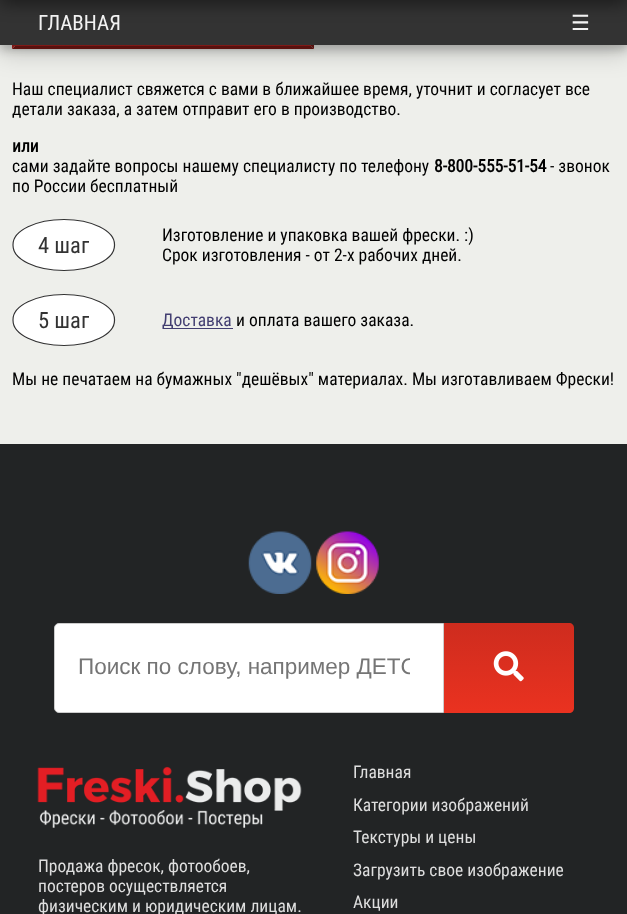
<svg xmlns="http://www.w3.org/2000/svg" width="627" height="914">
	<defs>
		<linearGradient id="g1" gradientUnits="userSpaceOnUse" x1="163" y1="2.5" x2="163" y2="46"><stop offset="0" stop-color="#E85B54" /><stop offset="1" stop-color="#B22520" /></linearGradient>
		<clipPath id="clip1"><rect x="78" y="654" width="332" height="26" /></clipPath>
		<linearGradient id="g2" gradientUnits="userSpaceOnUse" x1="509" y1="623" x2="509" y2="713"><stop offset="0" stop-color="#CE2C1E" /><stop offset="1" stop-color="#EA3220" /></linearGradient>
	</defs>
	<rect width="100%" height="100%" fill="#EEEFEB" />
	<rect x="13" y="1" width="301" height="49" fill="#000000" fill-opacity="0.05" filter="blur(1px)" />
	<rect x="15" y="45" width="296" height="1" fill="url(#g1)" />
	<path d="M314 0V49L311 46V2Z" fill="#771915" />
	<path d="M314 49H12L15 46H311Z" fill="#771915" />
	<path d="M12 49V0L15 2V46Z" fill="#B22520" />
	<rect x="0" y="8" width="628" height="45" fill="#000000" fill-opacity="0.19" filter="blur(12.5px)" />
	<rect x="0" y="5" width="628" height="45" fill="#000000" fill-opacity="0.2" filter="blur(5px)" />
	<rect x="0" y="0" width="627" height="45" fill="#333333" />
	<rect x="0" y="-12" width="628" height="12" fill="#000000" fill-opacity="0.8" filter="blur(9.5px)" />
	<text x="38" y="30" font-family="Roboto Condensed" font-size="21" fill="#F2F2F2">ГЛАВНАЯ</text>
	<text x="571" y="30" font-family="DejaVu Sans" font-size="21" fill="#F2F2F2">☰</text>
	<g font-family="Roboto Condensed" font-size="17.5" fill="#000000">
		<text x="12" y="95">Наш специалист свяжется с вами в ближайшее время, уточнит и согласует все</text>
		<text x="12" y="115">детали заказа, а затем отправит его в производство.</text>
	</g>
	<text x="12" y="152" font-family="Roboto Condensed" font-size="17.5" font-weight="700" fill="#000000">или</text>
	<text x="12" y="172" font-family="Roboto Condensed" font-size="17.5" fill="#000000">сами задайте вопросы нашему специалисту по телефону</text>
	<text x="434" y="172" font-family="Roboto Condensed" font-size="17.5" font-weight="700" fill="#000000">8-800-555-51-54</text>
	<g font-family="Roboto Condensed" font-size="17.5" fill="#000000">
		<text x="550" y="172">- звонок</text>
		<text x="12" y="192">по России бесплатный</text>
	</g>
	<path d="M64 219C92 219 115 230 115 244V246C115 260 92 271 64 271C35 271 12 260 12 246V244C12 230 35 219 64 219Z" fill="#FFFFFF" />
	<path d="M64 219.5C91.5 219.5 114.5 230.5 114.5 244.5V245.5C114.5 259.5 91.5 270.5 64 270.5C36 270.5 13 259.5 13 245.5V244.5C13 230.5 36 219.5 64 219.5Z" fill="none" stroke="#333333" stroke-width="1.2" />
	<text x="38" y="253" font-family="Roboto Condensed" font-size="22.5" fill="#333333">4 шаг</text>
	<g font-family="Roboto Condensed" font-size="17.5" fill="#000000">
		<text x="162" y="241">Изготовление и упаковка вашей фрески. :)</text>
		<text x="162" y="261">Срок изготовления - от 2-х рабочих дней.</text>
	</g>
	<path d="M64 294C92 294 115 305 115 319V321C115 335 92 346 64 346C35 346 12 335 12 321V319C12 305 35 294 64 294Z" fill="#FFFFFF" />
	<path d="M64 294.5C91.5 294.5 114.5 305.5 114.5 319.5V320.5C114.5 334.5 91.5 345.5 64 345.5C36 345.5 13 334.5 13 320.5V319.5C13 305.5 36 294.5 64 294.5Z" fill="none" stroke="#333333" stroke-width="1.2" />
	<text x="38" y="328" font-family="Roboto Condensed" font-size="22.5" fill="#333333">5 шаг</text>
	<rect x="163" y="328" width="70" height="1" fill="#423E71" />
	<text x="162" y="326" font-family="Roboto Condensed" font-size="17.5" fill="#423E71">Доставка</text>
	<g font-family="Roboto Condensed" font-size="17.5" fill="#000000">
		<text x="236" y="326">и оплата вашего заказа.</text>
		<text x="12" y="385">Мы не печатаем на бумажных "дешёвых" материалах. Мы изготавливаем Фрески!</text>
	</g>
	<rect x="0" y="444" width="627" height="470" fill="#222425" />
	<image x="248" y="531" width="64" height="63" href="assets/img1.png" />
	<image x="316" y="531" width="63" height="63" href="assets/img2.png" />
	<path d="M59 623.5H443.5V712.5H59C56.5 712.5 54.5 710.5 54.5 708V628C54.5 625.5 56.5 623.5 59 623.5Z" fill="#FFFFFF" stroke="#CCCCCC" />
	<g clip-path="url(#clip1)">
		<text x="78" y="674" font-family="Liberation Sans" font-size="22.5" fill="#757575">Поиск по слову, например ДЕТС</text>
	</g>
	<path d="M444 623H569C572 623 574 625 574 628V708C574 711 572 713 569 713H444Z" fill="url(#g2)" />
	<image x="493" y="651" width="31" height="31" href="assets/img3.png" />
	<image x="37" y="766" width="265" height="62" href="assets/img4.png" />
	<g font-family="Roboto Condensed" font-size="17.5" fill="#DEDEDE">
		<text x="38" y="872">Продажа фресок, фотообоев,</text>
		<text x="38" y="892">постеров осуществляется</text>
		<text x="38" y="912">физическим и юридическим лицам.</text>
		<text x="353" y="778">Главная</text>
		<text x="353" y="811">Категории изображений</text>
		<text x="353" y="843">Текстуры и цены</text>
		<text x="353" y="876">Загрузить свое изображение</text>
		<text x="353" y="908">Акции</text>
	</g>
</svg>
